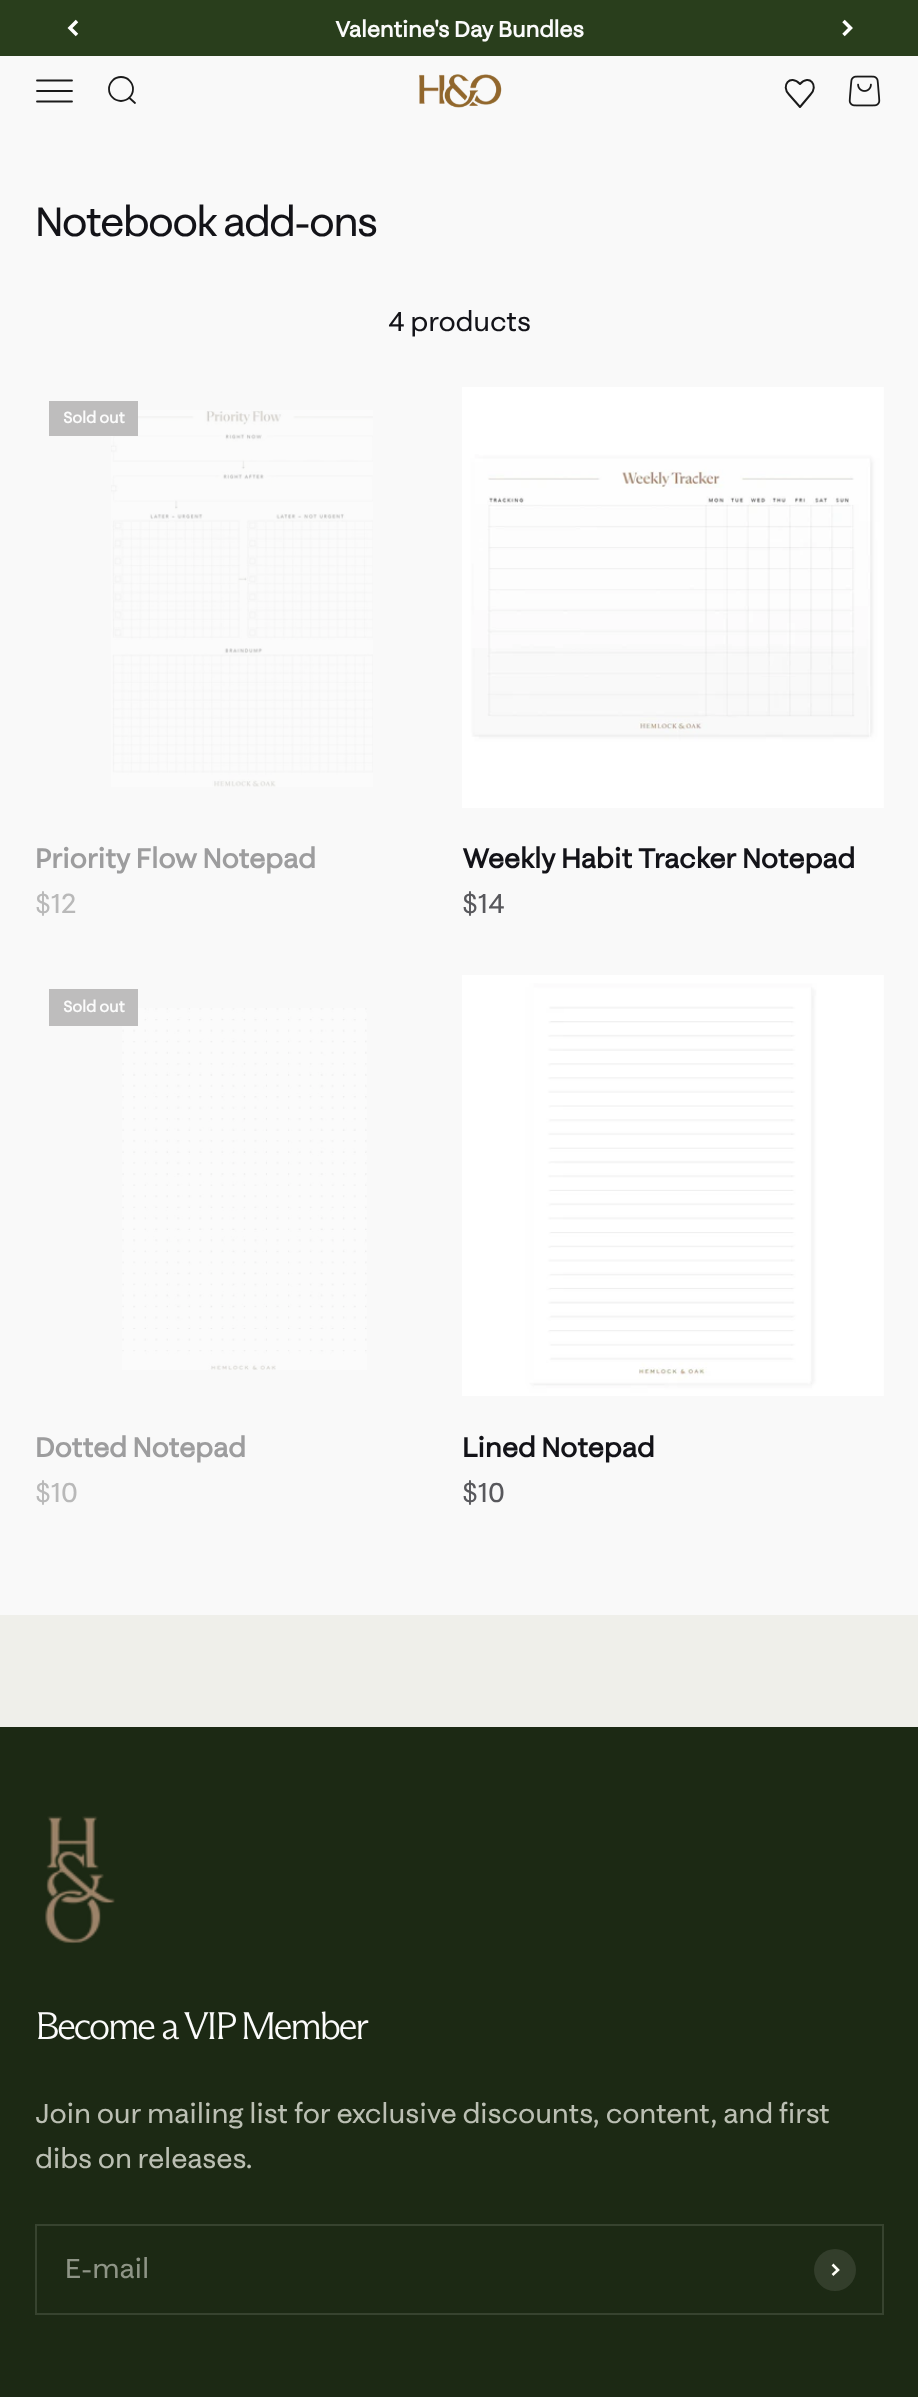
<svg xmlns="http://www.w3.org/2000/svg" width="918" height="2397">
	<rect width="100%" height="100%" fill="#F9F9F9" />
	<rect x="0" y="0" width="918" height="56" fill="#293E1C" />
	<path d="M77 21L70 28L77 35" fill="none" stroke="#FFFFFF" stroke-width="3.5" />
	<text x="335" y="37" font-family="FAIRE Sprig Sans" font-size="22.75" font-weight="700" letter-spacing="-0.15" fill="#FBFBFB">Valentine's Day Bundles</text>
	<path d="M843.5 35L850.5 28L843.5 21" fill="none" stroke="#FFFFFF" stroke-width="3.5" />
	<path d="M37 80.5H72M37 91H72M37 101.5H72" fill="none" stroke="#1A1A1A" stroke-width="1.8" stroke-linecap="round" />
	<circle cx="121" cy="89" r="12" fill="none" stroke="#1A1A1A" stroke-width="1.8" />
	<path d="M129.5 98L135 103" fill="none" stroke="#1A1A1A" stroke-width="1.8" stroke-linecap="round" stroke-linejoin="round" />
	<image x="419" y="74" width="83" height="34" href="assets/img1.png" />
	<path d="M800 84C790 73.5 780.5 86 789 94.5L800 107L810.5 94.5C819 86 809.5 73.5 800 84Z" fill="none" stroke="#1A1A1A" stroke-width="2" stroke-linecap="round" stroke-linejoin="round" />
	<image x="848" y="75" width="33" height="32" href="assets/img2.png" />
	<text x="35" y="236" font-family="FAIRE Sprig Sans" font-size="42" letter-spacing="-1.75" fill="#131318">Notebook add-ons</text>
	<text x="388" y="331" font-family="FAIRE Sprig Sans" font-size="28" letter-spacing="-0.15" fill="#131318">4 products</text>
	<image x="111" y="410" width="262" height="377" href="assets/img3.png" />
	<rect x="49" y="401" width="89" height="35" fill="#BEBDBD" />
	<text x="63" y="423" font-family="FAIRE Sprig Sans" font-size="16" font-weight="700" letter-spacing="-0.15" fill="#FBFBFB">Sold out</text>
	<text x="35" y="868" font-family="FAIRE Sprig Sans" font-size="28" font-weight="700" letter-spacing="-0.15" fill="#9D9D9E">Priority Flow Notepad</text>
	<text x="35" y="913" font-family="FAIRE Sprig Sans" font-size="28" letter-spacing="-0.15" fill="#B9B9B9">$12</text>
	<image x="462" y="387" width="422" height="421" href="assets/img4.png" />
	<text x="462" y="868" font-family="FAIRE Sprig Sans" font-size="28" font-weight="700" letter-spacing="-0.15" fill="#131318">Weekly Habit Tracker Notepad</text>
	<text x="462" y="913" font-family="FAIRE Sprig Sans" font-size="28" letter-spacing="-0.15" fill="#58585C">$14</text>
	<image x="122" y="1008" width="245" height="362" href="assets/img5.png" />
	<rect x="49" y="989" width="89" height="37" fill="#BEBDBD" />
	<text x="63" y="1012" font-family="FAIRE Sprig Sans" font-size="16" font-weight="700" letter-spacing="-0.15" fill="#FBFBFB">Sold out</text>
	<text x="35" y="1457" font-family="FAIRE Sprig Sans" font-size="28" font-weight="700" letter-spacing="-0.15" fill="#9D9D9E">Dotted Notepad</text>
	<text x="35" y="1502" font-family="FAIRE Sprig Sans" font-size="28" letter-spacing="-0.15" fill="#B9B9B9">$10</text>
	<image x="462" y="975" width="422" height="421" href="assets/img6.png" />
	<text x="462" y="1457" font-family="FAIRE Sprig Sans" font-size="28" font-weight="700" letter-spacing="-0.15" fill="#131318">Lined Notepad</text>
	<text x="462" y="1502" font-family="FAIRE Sprig Sans" font-size="28" letter-spacing="-0.15" fill="#58585C">$10</text>
	<rect x="0" y="1615" width="918" height="112" fill="#EFEFEA" />
	<rect x="0" y="1727" width="918" height="670" fill="#1C2914" />
	<image x="45" y="1816" width="70" height="128" href="assets/img7.png" />
	<text x="35" y="2039" font-family="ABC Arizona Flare" font-size="38.5" font-weight="300" letter-spacing="-2.6" fill="#FBFBFB">Become a VIP Member</text>
	<g font-family="FAIRE Sprig Sans" font-size="28" letter-spacing="-0.15" fill="#BBBFB3">
		<text x="35" y="2123">Join our mailing list for exclusive discounts, content, and first</text>
		<text x="35" y="2168">dibs on releases.</text>
	</g>
	<rect x="36" y="2225" width="847" height="89" fill="none" stroke="#37432F" stroke-width="2" />
	<text x="65" y="2278" font-family="FAIRE Sprig Sans" font-size="28" letter-spacing="-0.15" fill="#8E9486">E-mail</text>
	<circle cx="835" cy="2270" r="21" fill="#333E2B" />
	<path d="M832.5 2275L838 2270L832.5 2264.5" fill="none" stroke="#FFFFF7" stroke-width="2.6" />
</svg>
